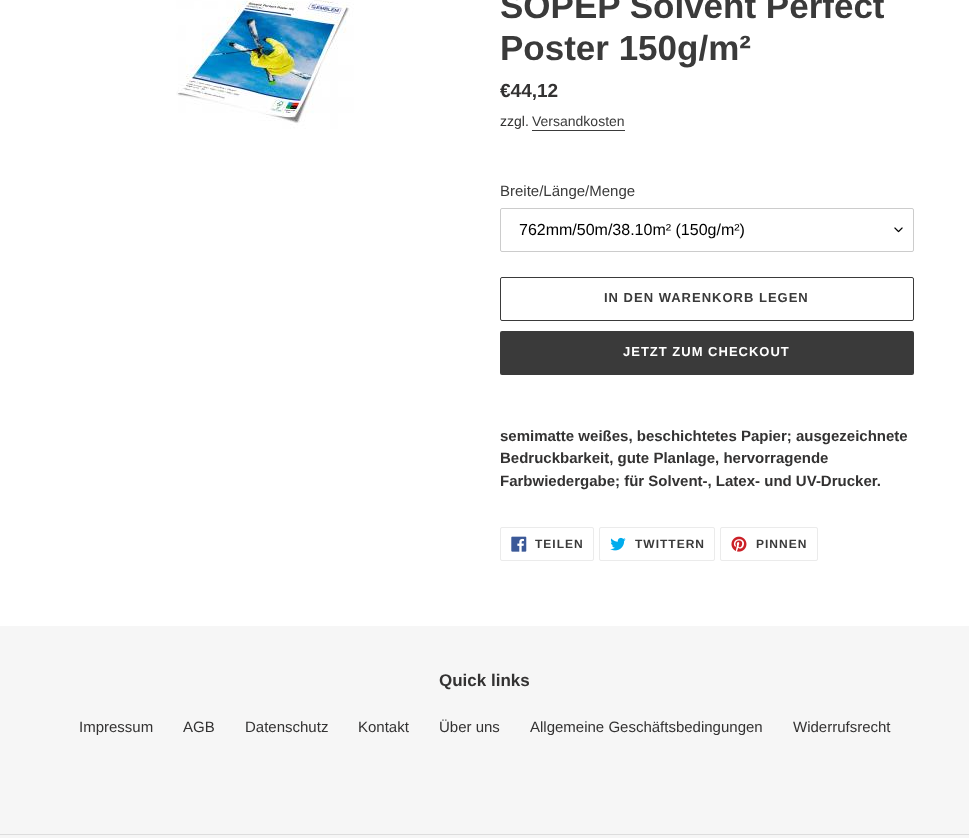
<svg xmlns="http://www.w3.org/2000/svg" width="969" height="838">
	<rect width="100%" height="100%" fill="#FFFFFF" />
	<image x="176" y="0" width="178" height="129" href="assets/img1.png" />
	<g font-family="Liberation Sans" font-size="35" font-weight="700" fill="#3A3A3A">
		<text x="500" y="18">SOPEP Solvent Perfect</text>
		<text x="500" y="60">Poster 150g/m²</text>
	</g>
	<text x="500" y="97" font-family="Liberation Sans" font-size="19" font-weight="700" fill="#333232">€44,12</text>
	<text x="500" y="126" font-family="Liberation Sans" font-size="14" fill="#333232">zzgl.</text>
	<text x="532" y="126" font-family="Liberation Sans" font-size="14" fill="#3A3A3A">Versandkosten</text>
	<rect x="532" y="130" width="93" height="1" fill="#3A3A3A" />
	<text x="500" y="196" font-family="Liberation Sans" font-size="15" fill="#3A3A3A">Breite/Länge/Menge</text>
	<image x="894" y="227" width="9" height="6" href="assets/img2.png" />
	<rect x="500.5" y="208.5" width="413" height="43" rx="1.5" fill="none" stroke="#CCCCCC" />
	<text x="519" y="235" font-family="Liberation Sans" font-size="16" fill="#000000">762mm/50m/38.10m² (150g/m²)</text>
	<rect x="500.5" y="277.5" width="413" height="43" rx="1.5" fill="none" stroke="#3A3A3A" />
	<text x="604" y="302" font-family="Liberation Sans" font-size="13" font-weight="700" letter-spacing="1" fill="#3A3A3A">IN DEN WARENKORB LEGEN</text>
	<rect x="500" y="331" width="414" height="44" rx="2" fill="#3A3A3A" />
	<text x="623" y="356" font-family="Liberation Sans" font-size="13" font-weight="700" letter-spacing="1" fill="#FFFFFF">JETZT ZUM CHECKOUT</text>
	<g font-family="Liberation Sans" font-size="15" font-weight="700" fill="#333232">
		<text x="500" y="441">semimatte weißes, beschichtetes Papier; ausgezeichnete</text>
		<text x="500" y="463">Bedruckbarkeit, gute Planlage, hervorragende</text>
		<text x="500" y="486">Farbwiedergabe; für Solvent-, Latex- und UV-Drucker.</text>
	</g>
	<rect x="500.5" y="527.5" width="93" height="33" rx="1.5" fill="none" stroke="#EBEBEB" />
	<image x="511" y="536" width="16" height="16" href="assets/img3.png" />
	<text x="535" y="548" font-family="Liberation Sans" font-size="12" font-weight="700" letter-spacing="1" fill="#3A3A3A">TEILEN</text>
	<rect x="599.5" y="527.5" width="115" height="33" rx="1.5" fill="none" stroke="#EBEBEB" />
	<image x="610" y="537" width="16" height="14" href="assets/img4.png" />
	<text x="635" y="548" font-family="Liberation Sans" font-size="12" font-weight="700" letter-spacing="1" fill="#3A3A3A">TWITTERN</text>
	<rect x="720.5" y="527.5" width="97" height="33" rx="1.5" fill="none" stroke="#EBEBEB" />
	<image x="731" y="536" width="16" height="16" href="assets/img5.png" />
	<text x="756" y="548" font-family="Liberation Sans" font-size="12" font-weight="700" letter-spacing="1" fill="#3A3A3A">PINNEN</text>
	<rect x="0" y="626" width="969" height="212" fill="#F6F6F6" />
	<text x="439" y="686" font-family="Liberation Sans" font-size="17" font-weight="700" fill="#333232">Quick links</text>
	<g font-family="Liberation Sans" font-size="15" fill="#333232">
		<text x="79" y="732">Impressum</text>
		<text x="183" y="732">AGB</text>
		<text x="245" y="732">Datenschutz</text>
		<text x="358" y="732">Kontakt</text>
		<text x="439" y="732">Über uns</text>
		<text x="530" y="732">Allgemeine Geschäftsbedingungen</text>
		<text x="793" y="732">Widerrufsrecht</text>
	</g>
	<rect x="0" y="834" width="969" height="1" fill="#DDDDDD" />
</svg>
